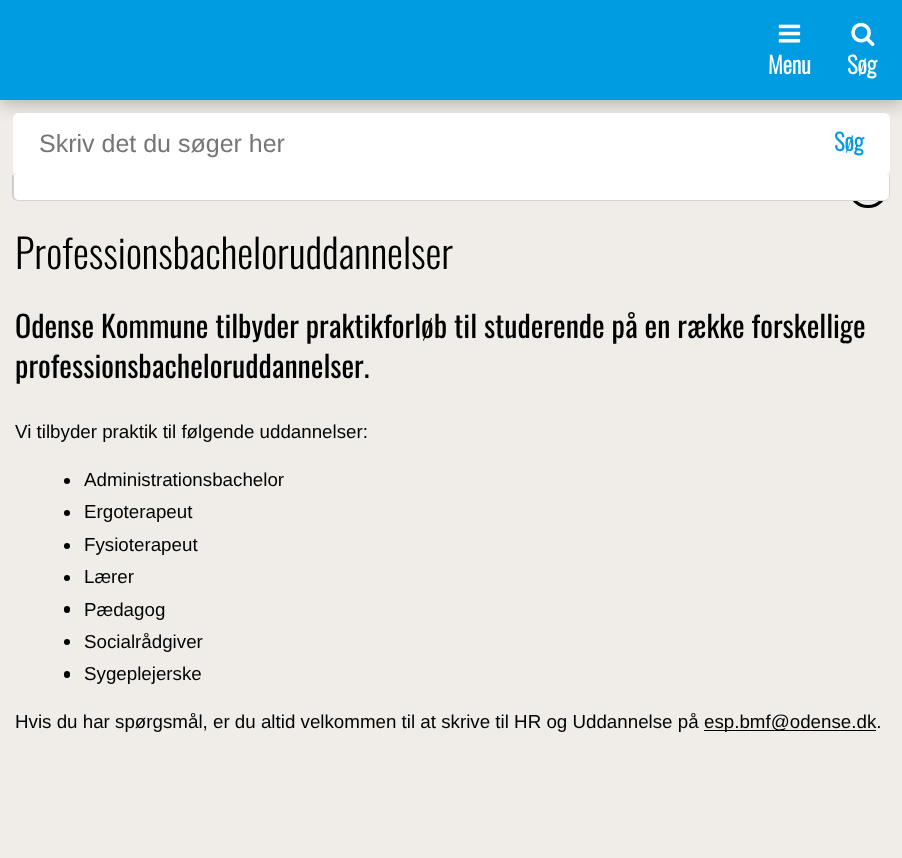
<svg xmlns="http://www.w3.org/2000/svg" width="902" height="858">
	<rect width="100%" height="100%" fill="#F0EDE8" />
	<rect x="0" y="4" width="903" height="100" fill="#000000" fill-opacity="0.25" filter="blur(9px)" />
	<rect x="0" y="0" width="902" height="100" fill="#009CE2" />
	<image x="851" y="22" width="24" height="25" href="assets/img1.png" />
	<text x="847" y="74" font-family="Oswald" font-size="23" font-weight="700" fill="#FFFFFF">Søg</text>
	<path d="M19 113H809V175H19C15.5 175 13 172.5 13 169V119C13 115.5 15.5 113 19 113Z" fill="#FFFFFF" />
	<text x="39" y="152" font-family="Liberation Sans" font-size="25" fill="#757575">Skriv det du søger her</text>
	<circle cx="868" cy="188" r="18.5" fill="none" stroke="#000000" stroke-width="3" />
	<path d="M809 113H884C887.5 113 890 115.5 890 119V169C890 172.5 887.5 175 884 175H809Z" fill="#FFFFFF" />
	<text x="834" y="151" font-family="Oswald" font-size="23" font-weight="700" fill="#009CE2">Søg</text>
	<path d="M13 175H890V195C890 198.5 887.5 201 884 201H19C15.5 201 13 198.5 13 195Z" fill="#FFFFFF" />
	<path d="M12 175H890V195C890 198 887 201 884 201H19C15 201 12 198 12 195ZM14 175H889V195C889 198 887 200 884 200H19C16 200 14 198 14 195Z" fill="#808080" fill-opacity="0.33" fill-rule="evenodd" />
	<image x="778" y="24" width="23" height="19" href="assets/img2.png" />
	<text x="768" y="74" font-family="Oswald" font-size="23" font-weight="700" fill="#FFFFFF">Menu</text>
	<text x="15" y="269" font-family="Oswald" font-size="40" font-weight="300" fill="#000000">Professionsbacheloruddannelser</text>
	<g font-family="Oswald" font-size="30" fill="#000000">
		<text x="15" y="338">Odense Kommune tilbyder praktikforløb til studerende på en række forskellige</text>
		<text x="15" y="378">professionsbacheloruddannelser.</text>
	</g>
	<text x="15" y="438" font-family="Liberation Sans" font-size="18.75" fill="#000000">Vi tilbyder praktik til følgende uddannelser:</text>
	<circle cx="67" cy="481" r="3" fill="#000000" />
	<text x="84" y="486" font-family="Liberation Sans" font-size="18.75" fill="#000000">Administrationsbachelor</text>
	<circle cx="67" cy="513" r="3" fill="#000000" />
	<text x="84" y="518" font-family="Liberation Sans" font-size="18.75" fill="#000000">Ergoterapeut</text>
	<circle cx="67" cy="546" r="3" fill="#000000" />
	<text x="84" y="551" font-family="Liberation Sans" font-size="18.75" fill="#000000">Fysioterapeut</text>
	<circle cx="67" cy="578" r="3" fill="#000000" />
	<text x="84" y="583" font-family="Liberation Sans" font-size="18.75" fill="#000000">Lærer</text>
	<rect x="64" y="606" width="6" height="7" rx="3" fill="#000000" />
	<text x="84" y="616" font-family="Liberation Sans" font-size="18.75" fill="#000000">Pædagog</text>
	<circle cx="67" cy="642" r="3" fill="#000000" />
	<text x="84" y="648" font-family="Liberation Sans" font-size="18.75" fill="#000000">Socialrådgiver</text>
	<rect x="64" y="671" width="6" height="7" rx="3" fill="#000000" />
	<g font-family="Liberation Sans" font-size="18.75" fill="#000000">
		<text x="84" y="680">Sygeplejerske</text>
		<text x="15" y="728">Hvis du har spørgsmål, er du altid velkommen til at skrive til HR og Uddannelse på</text>
	</g>
	<rect x="704" y="730" width="172" height="1" fill="#000000" />
	<text x="704" y="728" font-family="Liberation Sans" font-size="18.75" fill="#000000">esp.bmf@odense.dk.</text>
</svg>
